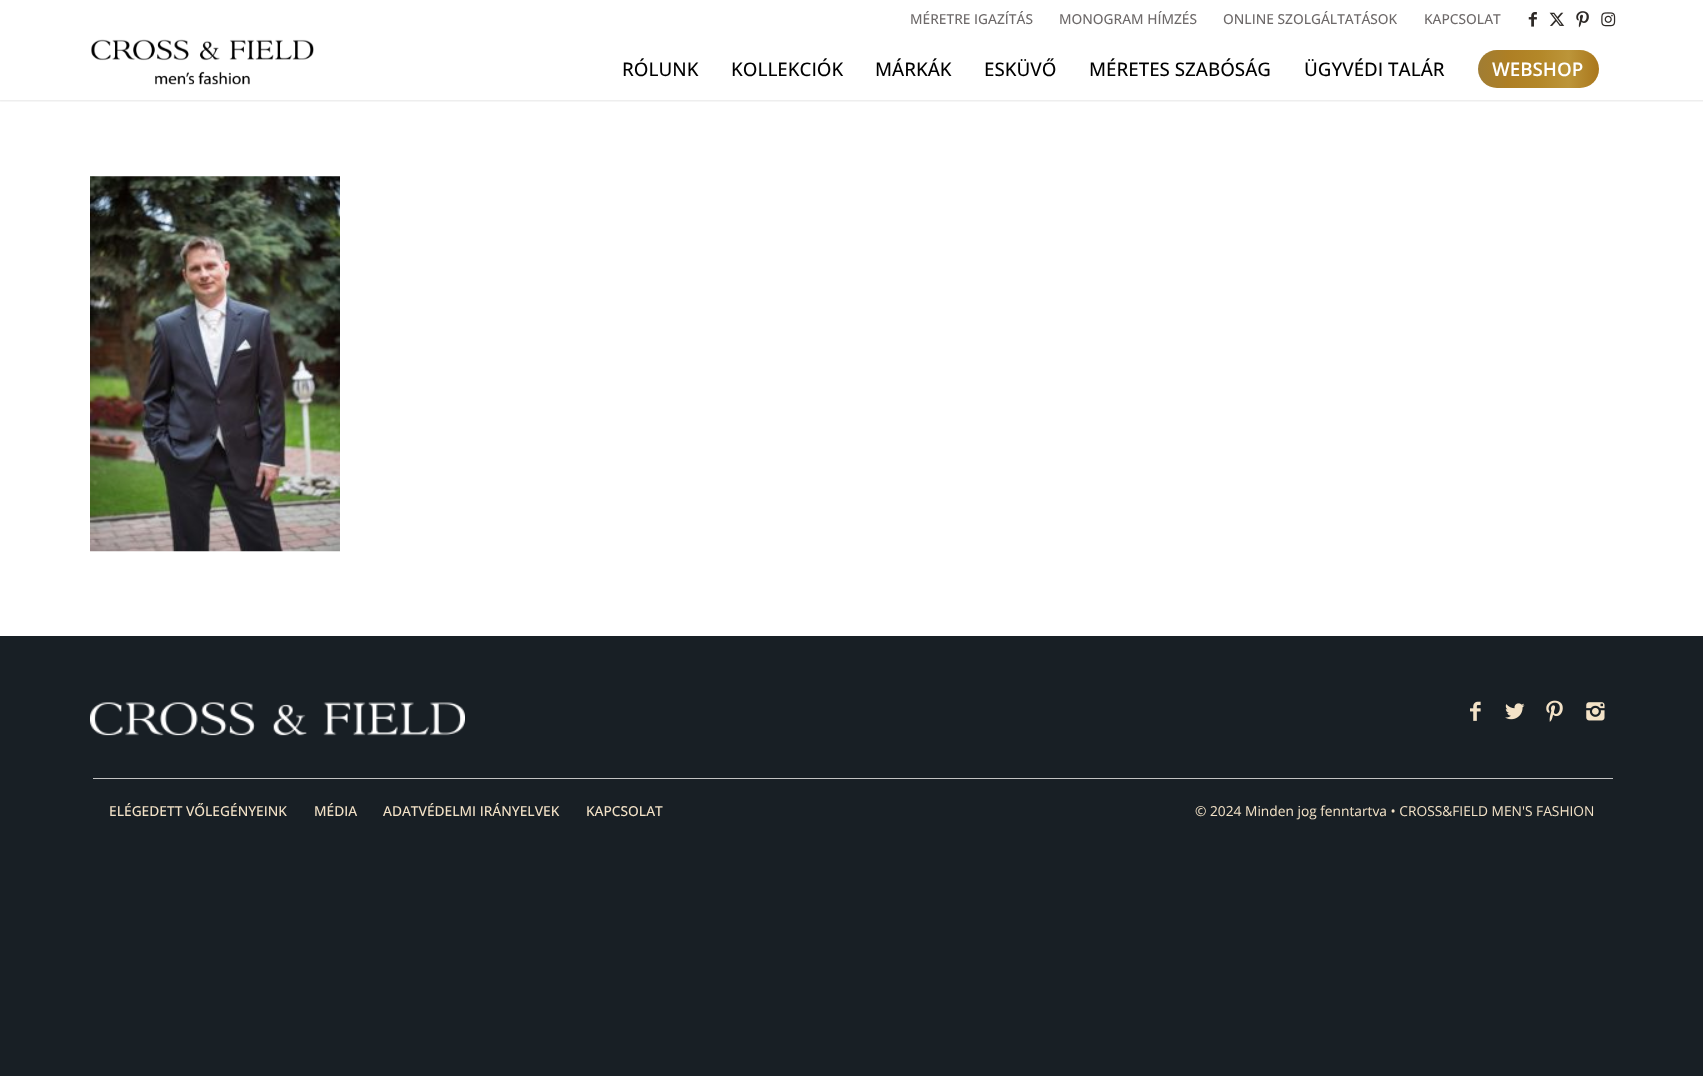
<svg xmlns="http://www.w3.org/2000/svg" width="1703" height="1076">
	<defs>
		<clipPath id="clip1"><rect x="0" y="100" width="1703" height="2" /></clipPath>
		<linearGradient id="g1" gradientUnits="userSpaceOnUse" x1="1478" y1="69" x2="1599" y2="69"><stop offset="0" stop-color="#A07D34" /><stop offset="0.25" stop-color="#AE7F24" /><stop offset="0.5" stop-color="#B38728" /><stop offset="0.75" stop-color="#BC9539" /><stop offset="1" stop-color="#AA771C" /></linearGradient>
	</defs>
	<rect width="100%" height="100%" fill="#181F25" />
	<rect x="0" y="0" width="1703" height="636" fill="#FFFFFF" />
	<g clip-path="url(#clip1)">
		<rect x="-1" y="-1" width="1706" height="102" fill="#000000" fill-opacity="0.1" filter="blur(1px)" />
	</g>
	<g font-family="Open Sans" font-size="13.75" font-weight="500" fill="#6D6969">
		<text x="910" y="24">MÉRETRE IGAZÍTÁS</text>
		<text x="1059" y="24">MONOGRAM HÍMZÉS</text>
		<text x="1223" y="24">ONLINE SZOLGÁLTATÁSOK</text>
		<text x="1424" y="24">KAPCSOLAT</text>
	</g>
	<image x="1528" y="12" width="9" height="15" href="assets/img1.png" />
	<image x="1549" y="12" width="16" height="14" href="assets/img2.png" />
	<image x="1576" y="11" width="13" height="17" href="assets/img3.png" />
	<image x="1601" y="12" width="15" height="15" href="assets/img4.png" />
	<image x="91" y="39" width="223" height="46" href="assets/img5.png" />
	<g font-family="Open Sans" font-size="18.75" font-weight="500" fill="#000000">
		<text x="622" y="76">RÓLUNK</text>
		<text x="731" y="76">KOLLEKCIÓK</text>
		<text x="875" y="76">MÁRKÁK</text>
		<text x="984" y="76">ESKÜVŐ</text>
		<text x="1089" y="76">MÉRETES SZABÓSÁG</text>
		<text x="1304" y="76">ÜGYVÉDI TALÁR</text>
	</g>
	<rect x="1478" y="50" width="121" height="38" rx="19" fill="url(#g1)" />
	<text x="1492" y="76" font-family="Open Sans" font-size="18.75" font-weight="600" fill="#FFFFFF">WEBSHOP</text>
	<image x="90" y="176" width="250" height="376" href="assets/img6.png" />
	<image x="90" y="702" width="375" height="34" href="assets/img7.png" />
	<image x="1470" y="701" width="11" height="20" href="assets/img8.png" />
	<image x="1505" y="703" width="20" height="17" href="assets/img9.png" />
	<image x="1546" y="700" width="17" height="22" href="assets/img10.png" />
	<image x="1586" y="702" width="19" height="19" href="assets/img11.png" />
	<rect x="93" y="778" width="1520" height="1" fill="#C3C3C3" />
	<g font-family="Open Sans" font-size="13.75" font-weight="500" fill="#F3E2C7">
		<text x="109" y="816">ELÉGEDETT VŐLEGÉNYEINK</text>
		<text x="314" y="816">MÉDIA</text>
		<text x="383" y="816">ADATVÉDELMI IRÁNYELVEK</text>
		<text x="586" y="816">KAPCSOLAT</text>
	</g>
	<text x="1195" y="816" font-family="Open Sans" font-size="13.75" fill="#F3E2C7">© 2024 Minden jog fenntartva • CROSS&amp;FIELD MEN'S FASHION</text>
</svg>
